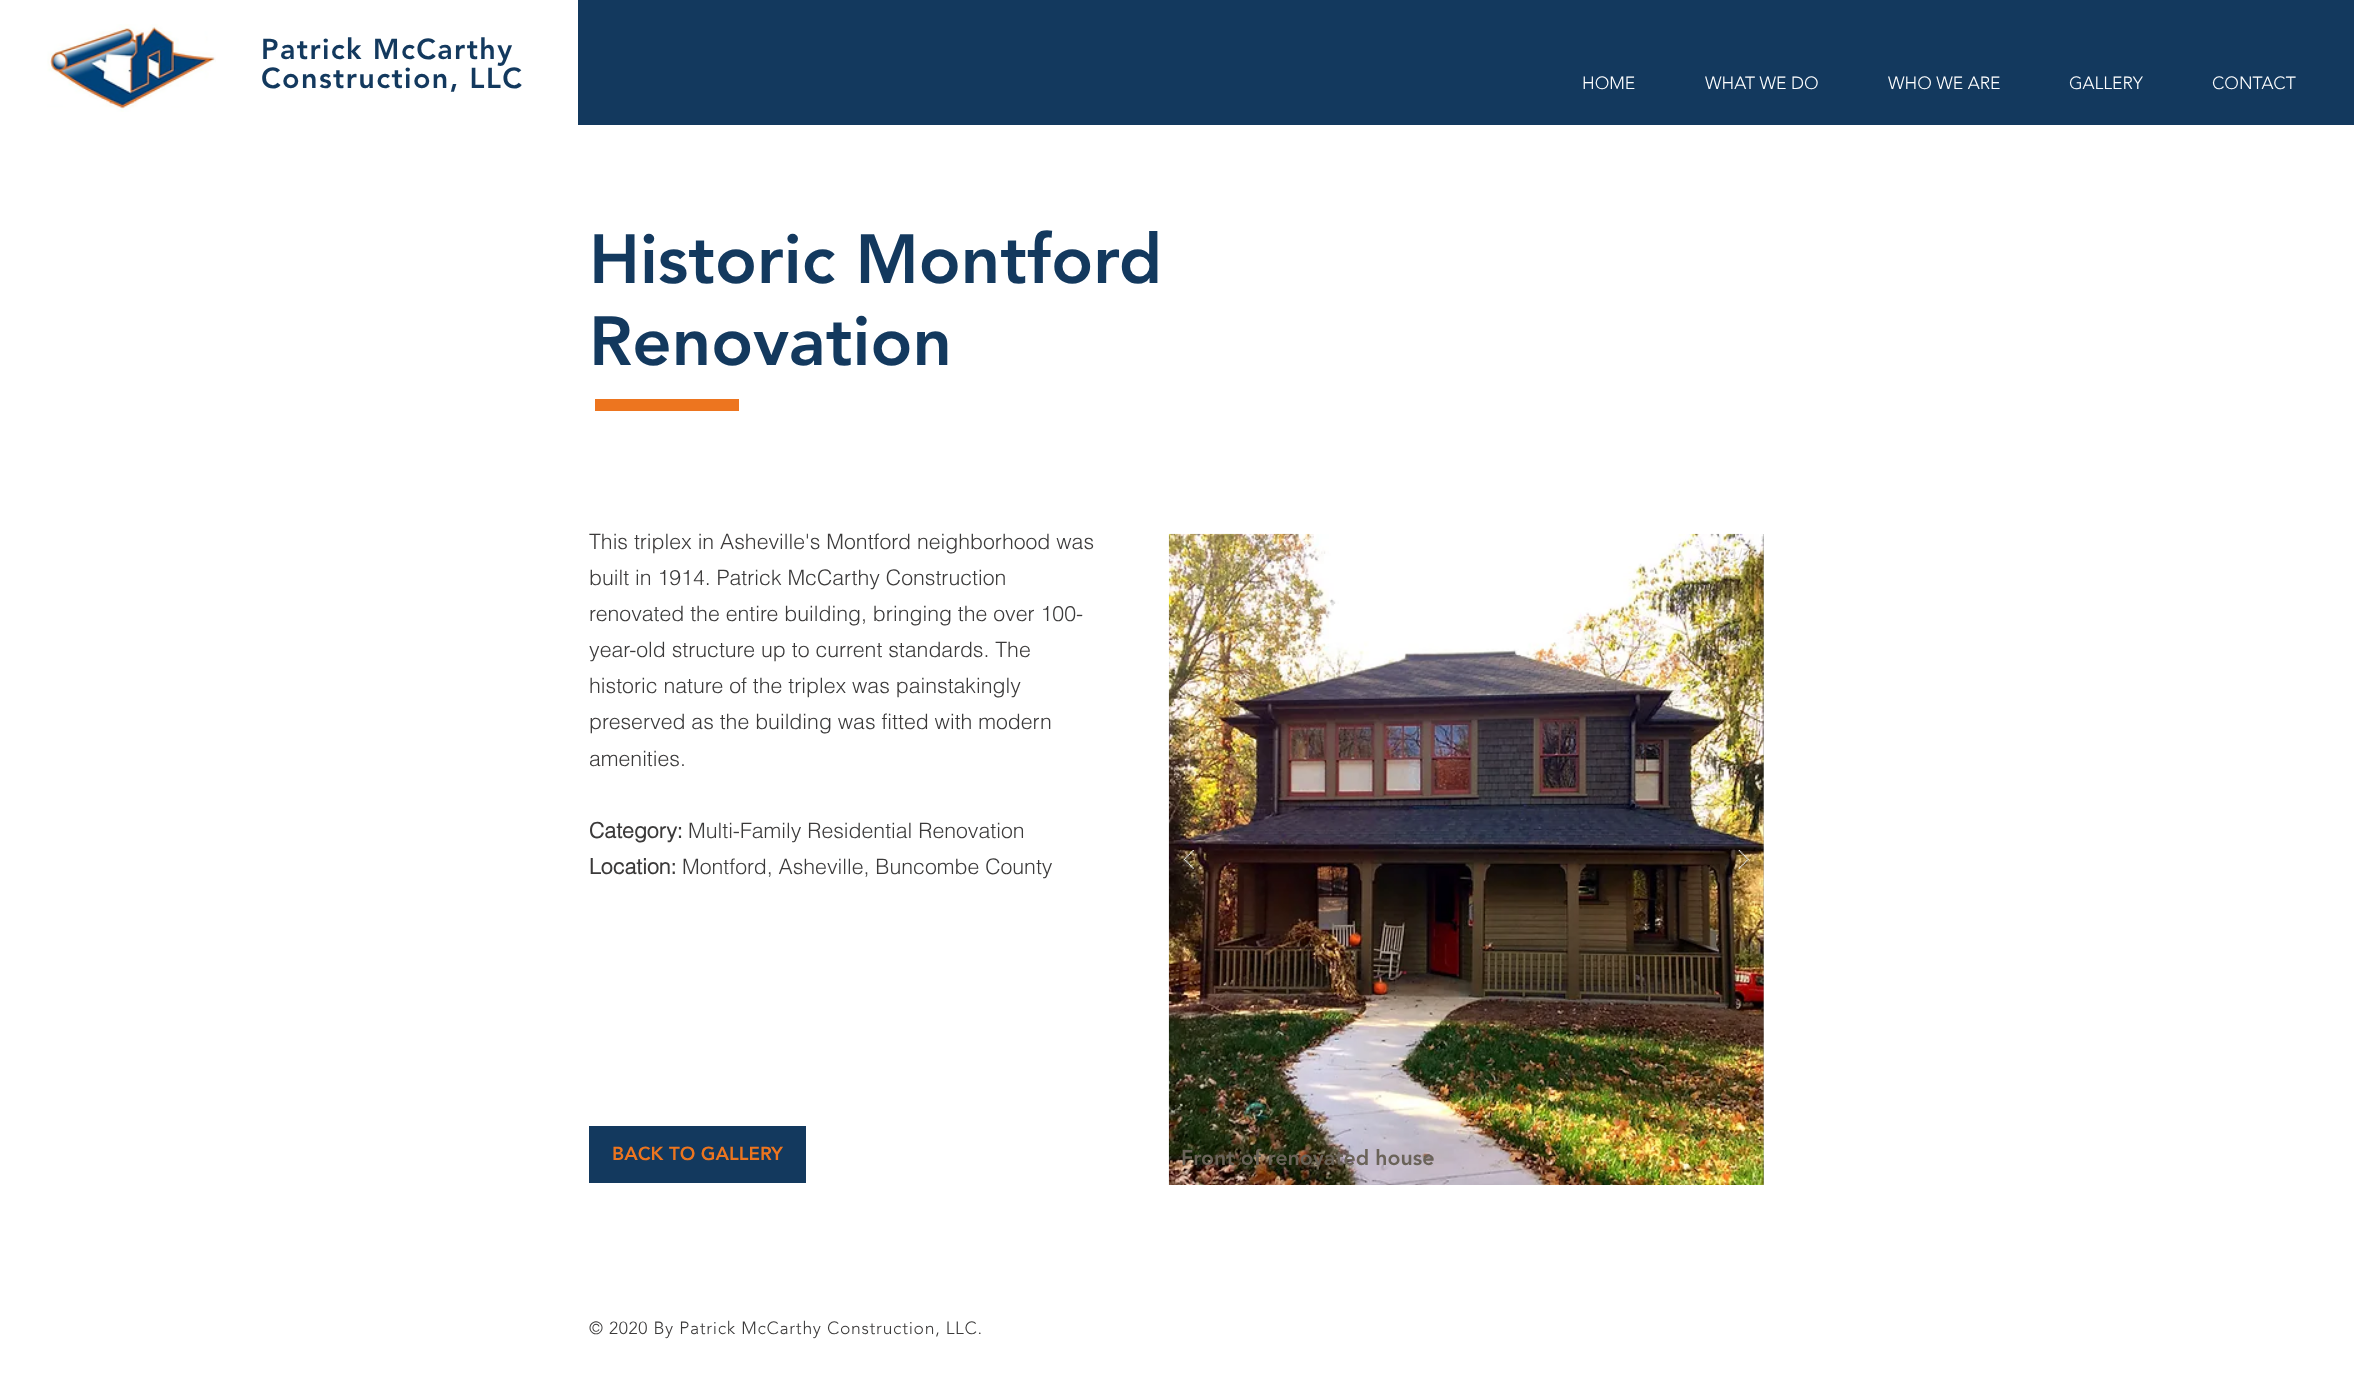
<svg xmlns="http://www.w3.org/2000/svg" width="2354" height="1400">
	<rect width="100%" height="100%" fill="#FFFFFF" />
	<image x="47" y="24" width="169" height="88" href="assets/img1.png" />
	<g font-family="'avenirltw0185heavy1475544'" font-size="28.75" font-weight="900" letter-spacing="1.4" fill="#13395E">
		<text x="261" y="59">Patrick McCarthy</text>
		<text x="261" y="88">Construction, LLC</text>
	</g>
	<rect x="578" y="0" width="1776" height="125" fill="#13395E" />
	<g font-family="'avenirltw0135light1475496'" font-size="17.5" font-weight="300" fill="#FFFFFF">
		<text x="1582" y="89">HOME</text>
		<text x="1705" y="89">WHAT WE DO</text>
		<text x="1888" y="89">WHO WE ARE</text>
		<text x="2069" y="89">GALLERY</text>
		<text x="2212" y="89">CONTACT</text>
	</g>
	<g font-family="'avenirltw0185heavy1475544'" font-size="68.75" font-weight="900" fill="#13395E">
		<text x="589" y="283">Historic Montford</text>
		<text x="589" y="365">Renovation</text>
	</g>
	<rect x="595" y="399" width="144" height="12" fill="#ED751F" />
	<g font-family="helvetica" font-size="21.25" font-weight="300" fill="#3B3A3A">
		<text x="589" y="549">This triplex in Asheville's Montford neighborhood was</text>
		<text x="589" y="585">built in 1914. Patrick McCarthy Construction</text>
		<text x="589" y="621">renovated the entire building, bringing the over 100-</text>
		<text x="589" y="657">year-old structure up to current standards. The</text>
		<text x="589" y="693">historic nature of the triplex was painstakingly</text>
		<text x="589" y="729">preserved as the building was fitted with modern</text>
		<text x="589" y="766">amenities.</text>
	</g>
	<text x="589" y="838" font-family="helvetica" font-size="21.25" font-weight="700" fill="#3B3A3A">Category:</text>
	<text x="688" y="838" font-family="helvetica" font-size="21.25" font-weight="300" fill="#3B3A3A">Multi-Family Residential Renovation</text>
	<text x="589" y="874" font-family="helvetica" font-size="21.25" font-weight="700" fill="#3B3A3A">Location:</text>
	<text x="682" y="874" font-family="helvetica" font-size="21.25" font-weight="300" fill="#3B3A3A">Montford, Asheville, Buncombe County</text>
	<rect x="1763" y="534" width="1" height="651" fill="#A0A09F" />
	<image x="1168" y="533" width="596" height="652" href="assets/img4.png" />
	<text x="1730" y="559" font-family="Liberation Sans" font-size="15" fill="#E7E3DA">1/7</text>
	<image x="1183" y="850" width="11" height="20" href="assets/img2.png" />
	<image x="1738" y="850" width="11" height="20" href="assets/img3.png" />
	<text x="1181" y="1165" font-family="'avenirltw0185heavy1475544'" font-size="21.25" font-weight="900" fill="#6A6359">Front of renovated house</text>
	<rect x="589" y="1126" width="217" height="57" fill="#13395E" />
	<text x="612" y="1160" font-family="'avenirltw0185heavy1475544'" font-size="18.75" font-weight="900" fill="#ED751F">BACK TO GALLERY</text>
	<text x="589" y="1334" font-family="'avenirltw0135light1475496'" font-size="17.5" font-weight="300" letter-spacing="0.7" fill="#3B3A3A">© 2020 By Patrick McCarthy Construction, LLC.</text>
</svg>
